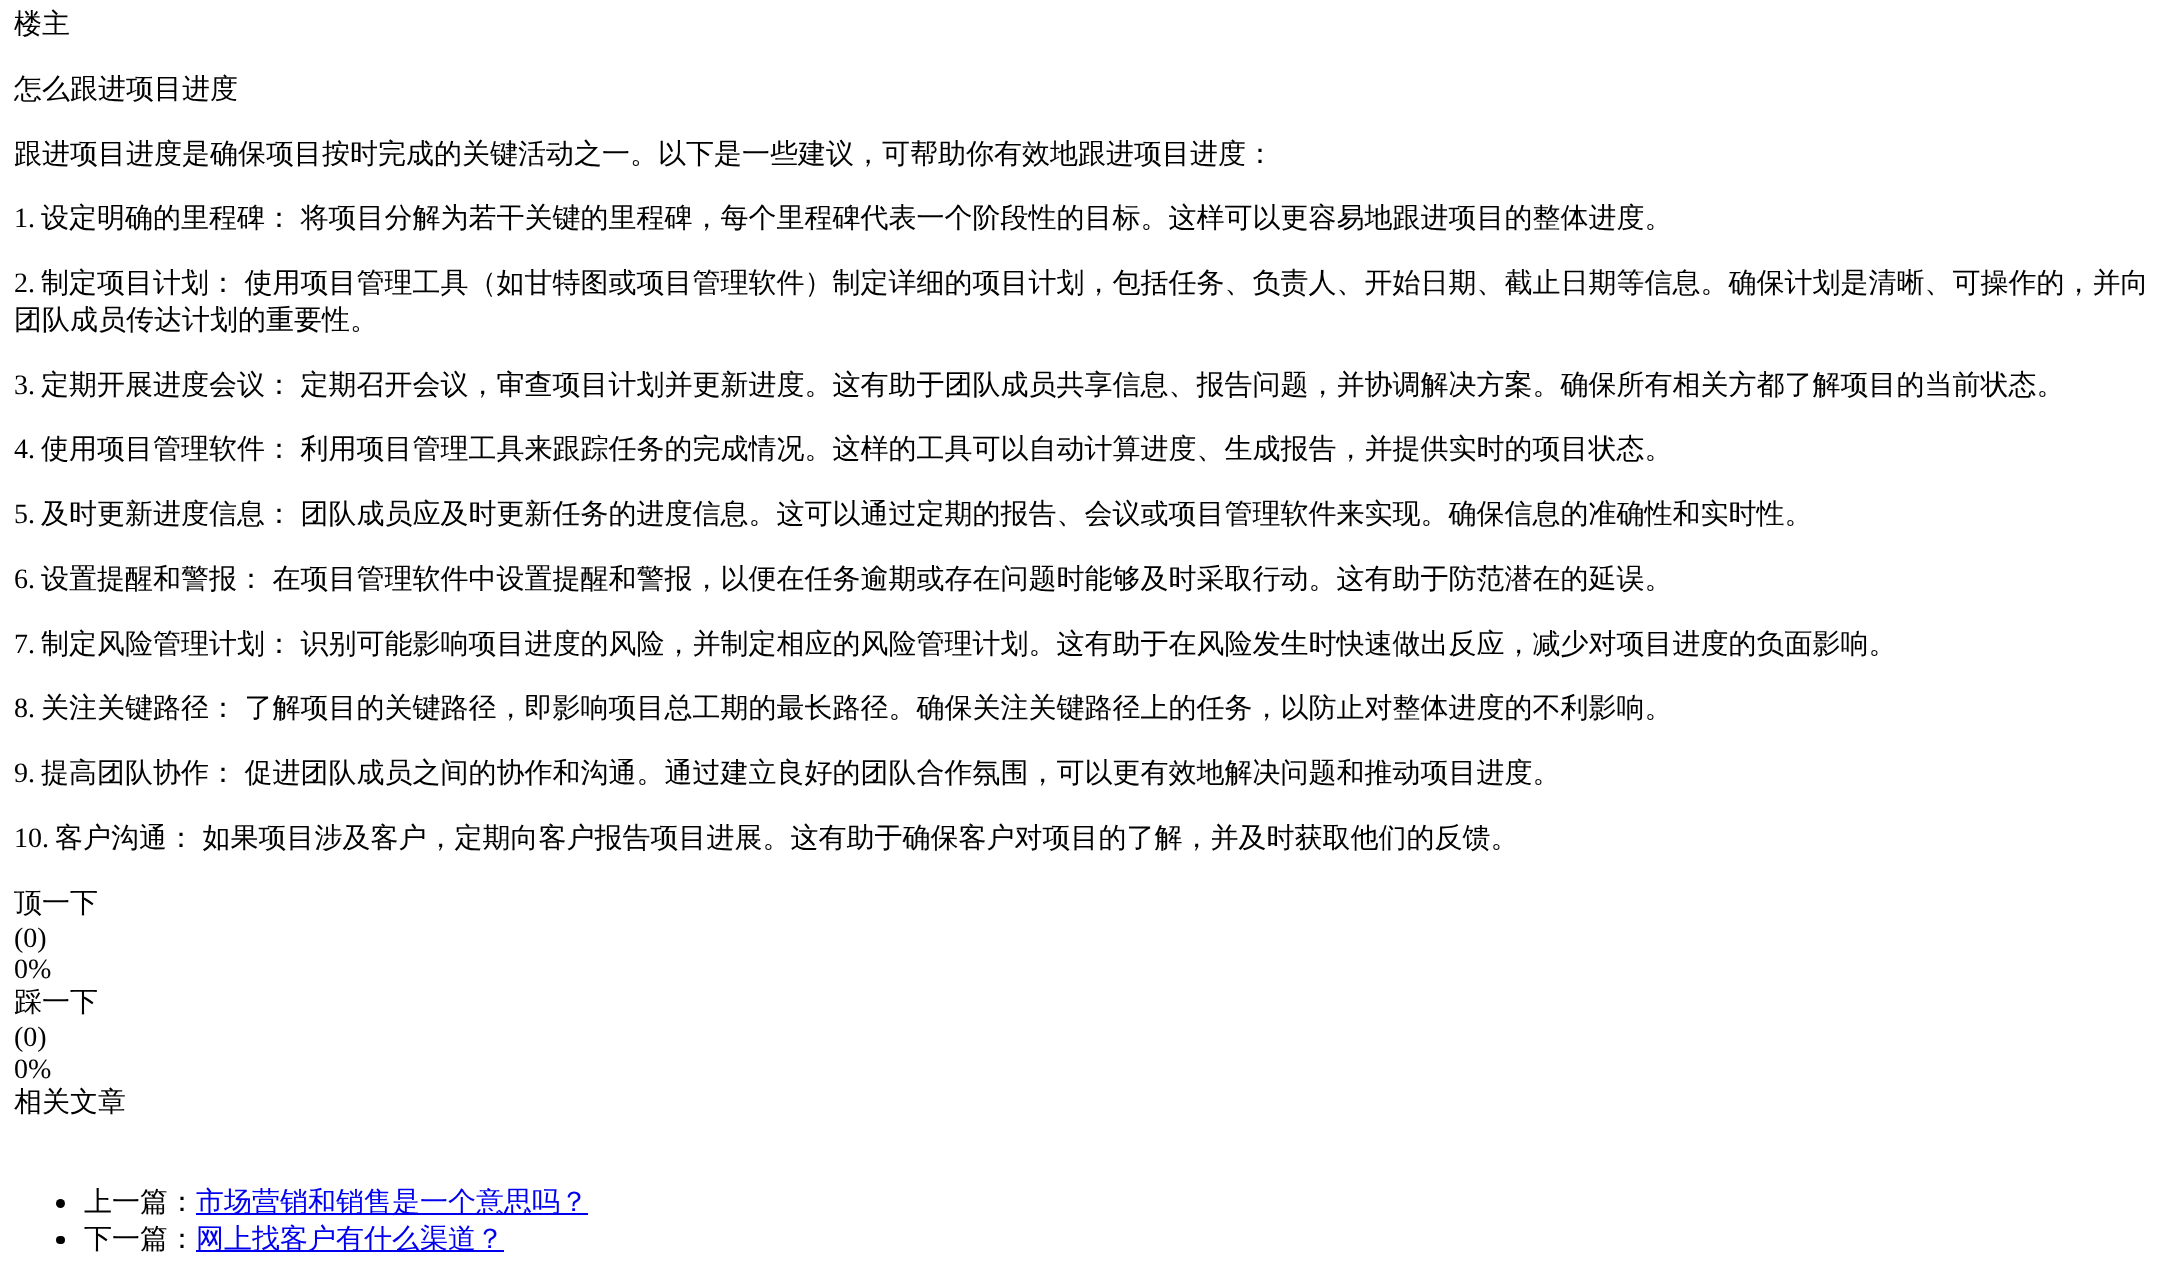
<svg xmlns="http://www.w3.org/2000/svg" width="2164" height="1281">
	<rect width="100%" height="100%" fill="#FFFFFF" />
	<g font-family="WenQuanYi Zen Hei" font-size="28" font-weight="500" fill="#000000">
		<text x="14" y="33">楼主</text>
		<text x="14" y="98">怎么跟进项目进度</text>
		<text x="14" y="163">跟进项目进度是确保项目按时完成的关键活动之一。以下是一些建议，可帮助你有效地跟进项目进度：</text>
	</g>
	<text x="14" y="227" font-family="Liberation Serif" font-size="28" fill="#000000">1.</text>
	<text x="41" y="227" word-spacing="-1" font-family="WenQuanYi Zen Hei" font-size="28" font-weight="500" fill="#000000">设定明确的里程碑： 将项目分解为若干关键的里程碑，每个里程碑代表一个阶段性的目标。这样可以更容易地跟进项目的整体进度。</text>
	<text x="14" y="292" font-family="Liberation Serif" font-size="28" fill="#000000">2.</text>
	<g font-family="WenQuanYi Zen Hei" font-size="28" font-weight="500" fill="#000000">
		<text x="41" y="292" word-spacing="-1">制定项目计划： 使用项目管理工具（如甘特图或项目管理软件）制定详细的项目计划，包括任务、负责人、开始日期、截止日期等信息。确保计划是清晰、可操作的，并向</text>
		<text x="14" y="329">团队成员传达计划的重要性。</text>
	</g>
	<text x="14" y="394" font-family="Liberation Serif" font-size="28" fill="#000000">3.</text>
	<text x="41" y="394" word-spacing="-1" font-family="WenQuanYi Zen Hei" font-size="28" font-weight="500" fill="#000000">定期开展进度会议： 定期召开会议，审查项目计划并更新进度。这有助于团队成员共享信息、报告问题，并协调解决方案。确保所有相关方都了解项目的当前状态。</text>
	<text x="14" y="458" font-family="Liberation Serif" font-size="28" fill="#000000">4.</text>
	<text x="41" y="458" word-spacing="-1" font-family="WenQuanYi Zen Hei" font-size="28" font-weight="500" fill="#000000">使用项目管理软件： 利用项目管理工具来跟踪任务的完成情况。这样的工具可以自动计算进度、生成报告，并提供实时的项目状态。</text>
	<text x="14" y="523" font-family="Liberation Serif" font-size="28" fill="#000000">5.</text>
	<text x="41" y="523" word-spacing="-1" font-family="WenQuanYi Zen Hei" font-size="28" font-weight="500" fill="#000000">及时更新进度信息： 团队成员应及时更新任务的进度信息。这可以通过定期的报告、会议或项目管理软件来实现。确保信息的准确性和实时性。</text>
	<text x="14" y="588" font-family="Liberation Serif" font-size="28" fill="#000000">6.</text>
	<text x="41" y="588" word-spacing="-1" font-family="WenQuanYi Zen Hei" font-size="28" font-weight="500" fill="#000000">设置提醒和警报： 在项目管理软件中设置提醒和警报，以便在任务逾期或存在问题时能够及时采取行动。这有助于防范潜在的延误。</text>
	<text x="14" y="653" font-family="Liberation Serif" font-size="28" fill="#000000">7.</text>
	<text x="41" y="653" word-spacing="-1" font-family="WenQuanYi Zen Hei" font-size="28" font-weight="500" fill="#000000">制定风险管理计划： 识别可能影响项目进度的风险，并制定相应的风险管理计划。这有助于在风险发生时快速做出反应，减少对项目进度的负面影响。</text>
	<text x="14" y="717" font-family="Liberation Serif" font-size="28" fill="#000000">8.</text>
	<text x="41" y="717" word-spacing="-1" font-family="WenQuanYi Zen Hei" font-size="28" font-weight="500" fill="#000000">关注关键路径： 了解项目的关键路径，即影响项目总工期的最长路径。确保关注关键路径上的任务，以防止对整体进度的不利影响。</text>
	<text x="14" y="782" font-family="Liberation Serif" font-size="28" fill="#000000">9.</text>
	<text x="41" y="782" word-spacing="-1" font-family="WenQuanYi Zen Hei" font-size="28" font-weight="500" fill="#000000">提高团队协作： 促进团队成员之间的协作和沟通。通过建立良好的团队合作氛围，可以更有效地解决问题和推动项目进度。</text>
	<text x="14" y="847" font-family="Liberation Serif" font-size="28" fill="#000000">10.</text>
	<g font-family="WenQuanYi Zen Hei" font-size="28" font-weight="500" fill="#000000">
		<text x="55" y="847" word-spacing="-1">客户沟通： 如果项目涉及客户，定期向客户报告项目进展。这有助于确保客户对项目的了解，并及时获取他们的反馈。</text>
		<text x="14" y="912">顶一下</text>
	</g>
	<g font-family="Liberation Serif" font-size="28" fill="#000000">
		<text x="14" y="947">(0)</text>
		<text x="14" y="978">0%</text>
	</g>
	<text x="14" y="1011" font-family="WenQuanYi Zen Hei" font-size="28" font-weight="500" fill="#000000">踩一下</text>
	<g font-family="Liberation Serif" font-size="28" fill="#000000">
		<text x="14" y="1046">(0)</text>
		<text x="14" y="1078">0%</text>
	</g>
	<text x="14" y="1111" font-family="WenQuanYi Zen Hei" font-size="28" font-weight="500" fill="#000000">相关文章</text>
	<circle cx="60.5" cy="1203.5" r="4.5" fill="#000000" />
	<text x="84" y="1211" font-family="WenQuanYi Zen Hei" font-size="28" font-weight="500" fill="#000000">上一篇：</text>
	<rect x="196" y="1213" width="392" height="2" fill="#0000EE" />
	<text x="196" y="1211" font-family="WenQuanYi Zen Hei" font-size="28" font-weight="500" fill="#0000EE">市场营销和销售是一个意思吗？</text>
	<rect x="56" y="1236" width="9" height="8" rx="4" fill="#000000" />
	<text x="84" y="1248" font-family="WenQuanYi Zen Hei" font-size="28" font-weight="500" fill="#000000">下一篇：</text>
	<rect x="196" y="1250" width="308" height="2" fill="#0000EE" />
	<text x="196" y="1248" font-family="WenQuanYi Zen Hei" font-size="28" font-weight="500" fill="#0000EE">网上找客户有什么渠道？</text>
</svg>
